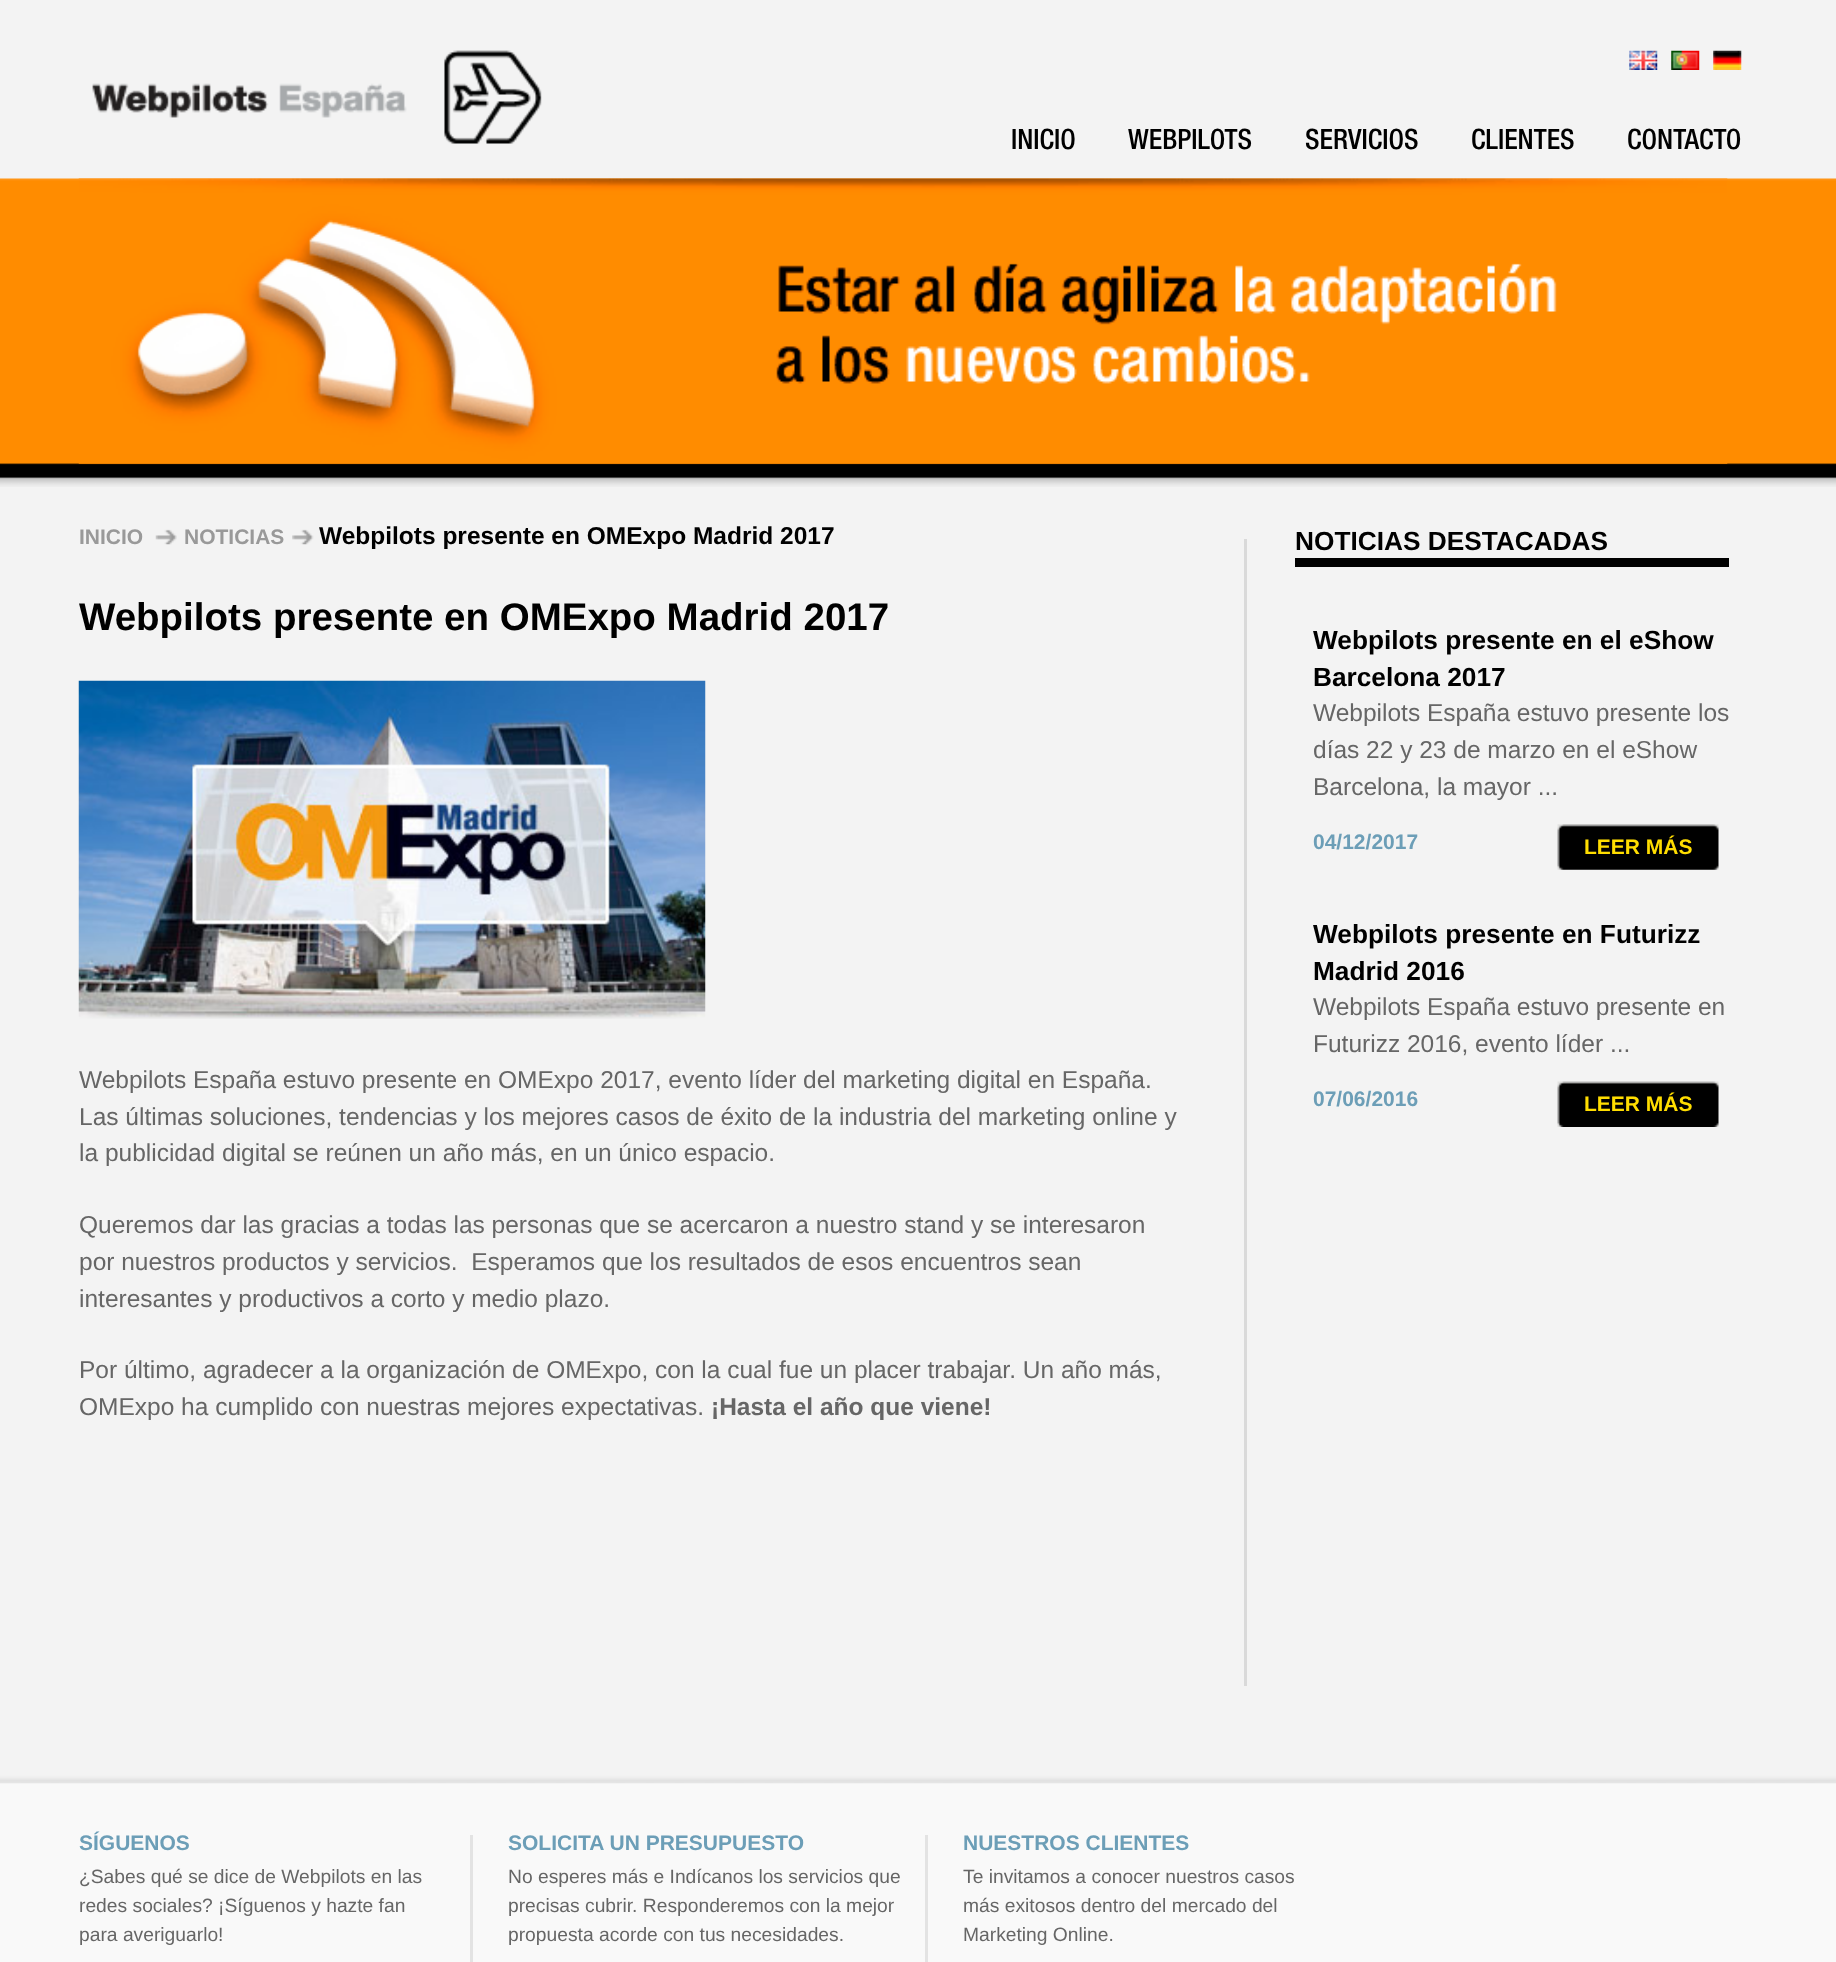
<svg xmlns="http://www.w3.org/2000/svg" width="1836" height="1962">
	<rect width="100%" height="100%" fill="#F3F3F3" />
	<image x="92" y="50" width="450" height="94" href="assets/img1.png" />
	<image x="1629" y="50" width="29" height="20" href="assets/img2.png" />
	<image x="1671" y="50" width="29" height="20" href="assets/img3.png" />
	<image x="1713" y="50" width="29" height="20" href="assets/img4.png" />
	<g font-family="Helvetica Neue" font-size="28" font-weight="500" fill="#000000">
		<text x="1011" y="149">INICIO</text>
		<text x="1128" y="149">WEBPILOTS</text>
		<text x="1305" y="149">SERVICIOS</text>
		<text x="1471" y="149">CLIENTES</text>
		<text x="1627" y="149">CONTACTO</text>
	</g>
	<image x="0" y="178" width="1836" height="309" href="assets/img5.png" />
	<image x="78" y="178" width="1650" height="286" href="assets/img6.png" />
	<text x="79" y="544" font-family="Liberation Sans" font-size="21" font-weight="700" fill="#999999">INICIO</text>
	<image x="155" y="529" width="22" height="16" href="assets/img7.png" />
	<text x="184" y="544" font-family="Liberation Sans" font-size="21" font-weight="700" fill="#999999">NOTICIAS</text>
	<image x="292" y="529" width="22" height="16" href="assets/img8.png" />
	<text x="319" y="544" font-family="Liberation Sans" font-size="24.5" font-weight="700" fill="#000000">Webpilots presente en OMExpo Madrid 2017</text>
	<rect x="1244" y="539" width="3" height="1147" fill="#D9D9D9" />
	<text x="1295" y="550" font-family="Liberation Sans" font-size="26.25" font-weight="700" fill="#000000">NOTICIAS DESTACADAS</text>
	<rect x="1295" y="558" width="434" height="9" fill="#000000" />
	<g font-family="Liberation Sans" font-size="26.25" font-weight="700" fill="#000000">
		<text x="1313" y="649">Webpilots presente en el eShow</text>
		<text x="1313" y="686">Barcelona 2017</text>
	</g>
	<g font-family="Liberation Sans" font-size="24.5" fill="#666666">
		<text x="1313" y="721">Webpilots España estuvo presente los</text>
		<text x="1313" y="758">días 22 y 23 de marzo en el eShow</text>
		<text x="1313" y="795">Barcelona, la mayor ...</text>
	</g>
	<text x="1313" y="849" font-family="Liberation Sans" font-size="21" font-weight="700" fill="#6C9EB7">04/12/2017</text>
	<image x="1557" y="824" width="162" height="46" href="assets/img9.png" />
	<text x="1584" y="854" font-family="Liberation Sans" font-size="21" font-weight="700" fill="#FFDD00">LEER MÁS</text>
	<g font-family="Liberation Sans" font-size="26.25" font-weight="700" fill="#000000">
		<text x="1313" y="943">Webpilots presente en Futurizz</text>
		<text x="1313" y="980">Madrid 2016</text>
	</g>
	<g font-family="Liberation Sans" font-size="24.5" fill="#666666">
		<text x="1313" y="1015">Webpilots España estuvo presente en</text>
		<text x="1313" y="1052">Futurizz 2016, evento líder ...</text>
	</g>
	<text x="1313" y="1106" font-family="Liberation Sans" font-size="21" font-weight="700" fill="#6C9EB7">07/06/2016</text>
	<image x="1557" y="1081" width="162" height="46" href="assets/img10.png" />
	<text x="1584" y="1111" font-family="Liberation Sans" font-size="21" font-weight="700" fill="#FFDD00">LEER MÁS</text>
	<text x="79" y="630" font-family="Liberation Sans" font-size="38.5" font-weight="700" fill="#000000">Webpilots presente en OMExpo Madrid 2017</text>
	<image x="78" y="680" width="628" height="339" href="assets/img11.png" />
	<g font-family="Liberation Sans" font-size="24.5" fill="#666666">
		<text x="79" y="1088">Webpilots España estuvo presente en OMExpo 2017, evento líder del marketing digital en España.</text>
		<text x="79" y="1125">Las últimas soluciones, tendencias y los mejores casos de éxito de la industria del marketing online y</text>
		<text x="79" y="1161">la publicidad digital se reúnen un año más, en un único espacio.</text>
		<text x="79" y="1233">Queremos dar las gracias a todas las personas que se acercaron a nuestro stand y se interesaron</text>
		<text x="79" y="1270" xml:space="preserve">por nuestros productos y servicios.  Esperamos que los resultados de esos encuentros sean</text>
		<text x="79" y="1307">interesantes y productivos a corto y medio plazo.</text>
		<text x="79" y="1378">Por último, agradecer a la organización de OMExpo, con la cual fue un placer trabajar. Un año más,</text>
		<text x="79" y="1415">OMExpo ha cumplido con nuestras mejores expectativas.</text>
	</g>
	<text x="711" y="1415" font-family="Liberation Sans" font-size="24.5" font-weight="700" fill="#666666">¡Hasta el año que viene!</text>
	<rect x="0" y="1783" width="1836" height="179" fill="#F9F9F9" />
	<image x="0" y="1773" width="1836" height="11" href="assets/img12.png" />
	<text x="79" y="1850" font-family="Liberation Sans" font-size="21" font-weight="700" fill="#6C9EB7">SÍGUENOS</text>
	<g font-family="Liberation Sans" font-size="19.25" fill="#666666">
		<text x="79" y="1883">¿Sabes qué se dice de Webpilots en las</text>
		<text x="79" y="1912">redes sociales? ¡Síguenos y hazte fan</text>
		<text x="79" y="1941">para averiguarlo!</text>
	</g>
	<rect x="470" y="1835" width="3" height="127" fill="#E3E3E3" />
	<text x="508" y="1850" font-family="Liberation Sans" font-size="21" font-weight="700" fill="#6C9EB7">SOLICITA UN PRESUPUESTO</text>
	<g font-family="Liberation Sans" font-size="19.25" fill="#666666">
		<text x="508" y="1883">No esperes más e Indícanos los servicios que</text>
		<text x="508" y="1912">precisas cubrir. Responderemos con la mejor</text>
		<text x="508" y="1941">propuesta acorde con tus necesidades.</text>
	</g>
	<rect x="925" y="1835" width="3" height="127" fill="#E3E3E3" />
	<text x="963" y="1850" font-family="Liberation Sans" font-size="21" font-weight="700" fill="#6C9EB7">NUESTROS CLIENTES</text>
	<g font-family="Liberation Sans" font-size="19.25" fill="#666666">
		<text x="963" y="1883">Te invitamos a conocer nuestros casos</text>
		<text x="963" y="1912">más exitosos dentro del mercado del</text>
		<text x="963" y="1941">Marketing Online.</text>
	</g>
</svg>
